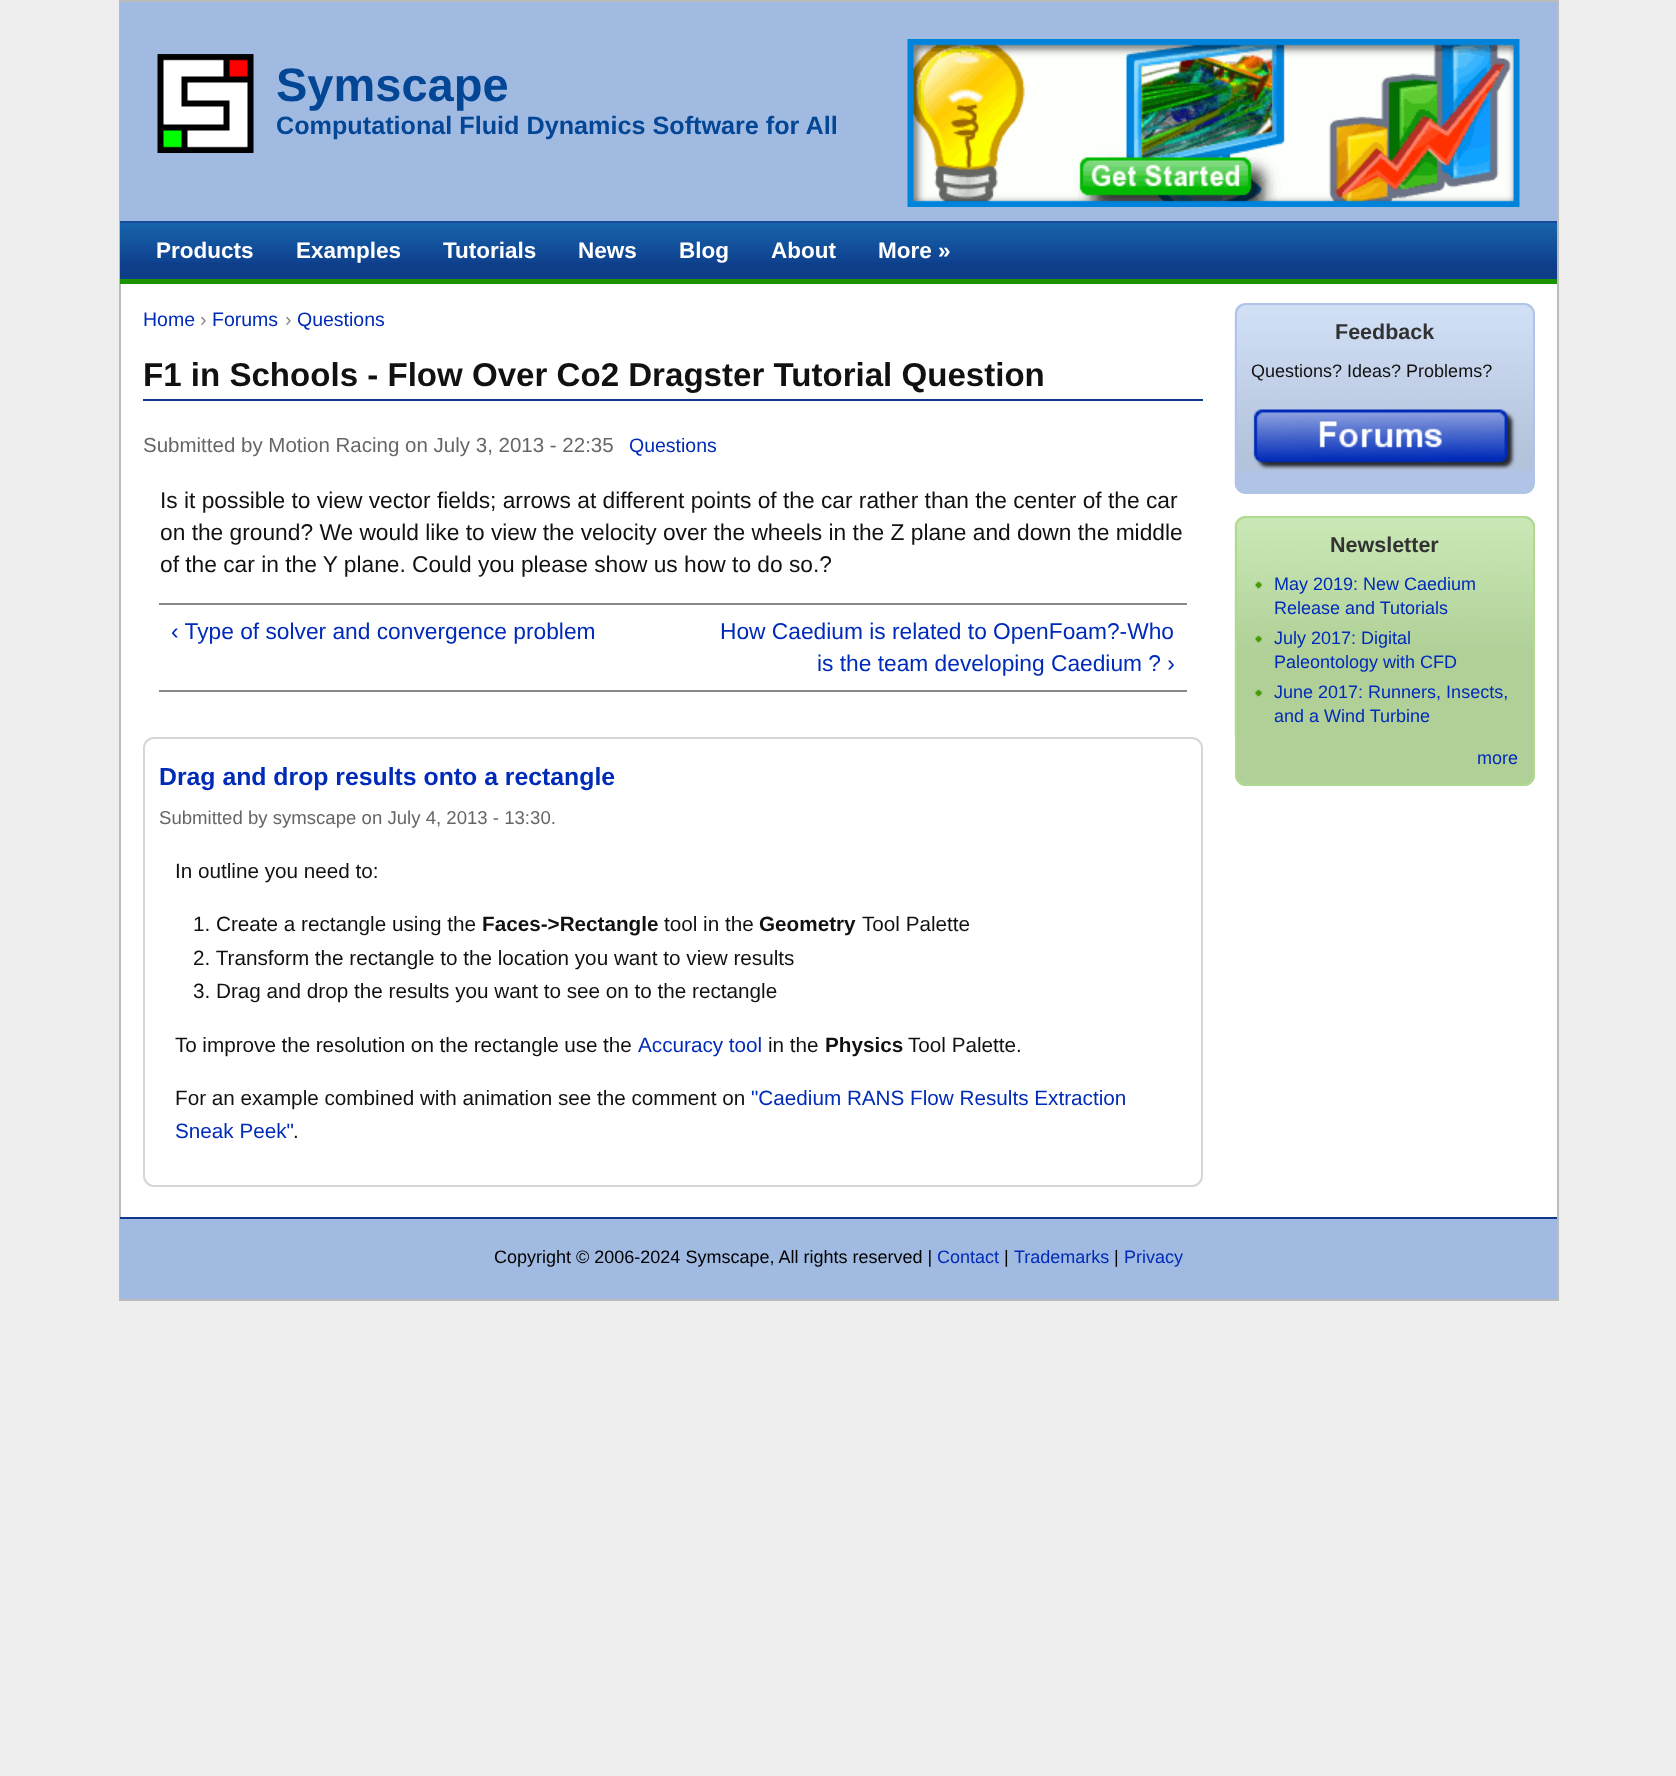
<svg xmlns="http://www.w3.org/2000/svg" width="1676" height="1776">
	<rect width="100%" height="100%" fill="#EEEEEE" />
	<rect x="121" y="284" width="1436" height="933" fill="#FFFFFF" />
	<rect x="120" y="1" width="1438" height="1299" fill="none" stroke="#BBBBBB" stroke-width="2" />
	<rect x="120" y="2" width="1437" height="219" fill="#A0BAE1" />
	<image x="157" y="54" width="97" height="99" href="assets/img1.png" />
	<text x="276" y="101" font-family="Liberation Sans" font-size="47" font-weight="700" fill="#034695">Symscape</text>
	<text x="276" y="134" font-family="Liberation Sans" font-size="25.2" font-weight="700" fill="#034695">Computational Fluid Dynamics Software for All</text>
	<image x="907" y="39" width="613" height="168" href="assets/img2.png" />
	<rect x="120" y="263" width="1437" height="16" fill="#0E3D8A" />
	<image x="120" y="223" width="1437" height="40" href="assets/img3.png" />
	<rect x="120" y="221" width="1437" height="2" fill="#194B9D" />
	<rect x="120" y="279" width="1437" height="5" fill="#1C9201" />
	<g font-family="Liberation Sans" font-size="22.5" font-weight="700" fill="#FFFFFF">
		<text x="156" y="258">Products</text>
		<text x="296" y="258">Examples</text>
		<text x="443" y="258">Tutorials</text>
		<text x="578" y="258">News</text>
		<text x="679" y="258">Blog</text>
		<text x="771" y="258">About</text>
		<text x="878" y="258">More »</text>
	</g>
	<text x="143" y="326" font-family="Liberation Sans" font-size="19.5" fill="#002BB8">Home</text>
	<text x="200" y="326" font-family="Liberation Sans" font-size="19.5" fill="#888888">›</text>
	<text x="212" y="326" font-family="Liberation Sans" font-size="19.5" fill="#002BB8">Forums</text>
	<text x="285" y="326" font-family="Liberation Sans" font-size="19.5" fill="#888888">›</text>
	<text x="297" y="326" font-family="Liberation Sans" font-size="19.5" fill="#002BB8">Questions</text>
	<rect x="143" y="399" width="1060" height="2" fill="#0E398A" />
	<text x="143" y="386" font-family="Liberation Sans" font-size="33.1" font-weight="700" fill="#111111">F1 in Schools - Flow Over Co2 Dragster Tutorial Question</text>
	<text x="143" y="452" font-family="Liberation Sans" font-size="20.5" fill="#666666">Submitted by Motion Racing on July 3, 2013 - 22:35</text>
	<text x="629" y="452" font-family="Liberation Sans" font-size="19.5" fill="#002BB8">Questions</text>
	<g font-family="Liberation Sans" font-size="22.75" fill="#111111">
		<text x="160" y="508">Is it possible to view vector fields; arrows at different points of the car rather than the center of the car</text>
		<text x="160" y="540">on the ground? We would like to view the velocity over the wheels in the Z plane and down the middle</text>
		<text x="160" y="572">of the car in the Y plane. Could you please show us how to do so.?</text>
	</g>
	<rect x="159" y="603" width="1028" height="2" fill="#888888" />
	<rect x="159" y="690" width="1028" height="2" fill="#888888" />
	<g font-family="Liberation Sans" font-size="22.75" fill="#002BB8">
		<text x="171" y="639">‹ Type of solver and convergence problem</text>
		<text x="720" y="639">How Caedium is related to OpenFoam?-Who</text>
		<text x="817" y="671">is the team developing Caedium ? ›</text>
	</g>
	<rect x="144" y="738" width="1058" height="448" rx="10" fill="none" stroke="#D6D6D6" stroke-width="2" />
	<text x="159" y="785" font-family="Liberation Sans" font-size="24.8" font-weight="700" fill="#002BB8">Drag and drop results onto a rectangle</text>
	<text x="159" y="824" font-family="Liberation Sans" font-size="18.6" fill="#666666">Submitted by symscape on July 4, 2013 - 13:30.</text>
	<g font-family="Liberation Sans" font-size="20.7" fill="#111111">
		<text x="175" y="878">In outline you need to:</text>
		<text x="193" y="931">1. Create a rectangle using the</text>
	</g>
	<text x="482" y="931" font-family="Liberation Sans" font-size="20.7" font-weight="700" fill="#111111">Faces-&gt;Rectangle</text>
	<text x="664" y="931" font-family="Liberation Sans" font-size="20.7" fill="#111111">tool in the</text>
	<text x="759" y="931" font-family="Liberation Sans" font-size="20.7" font-weight="700" fill="#111111">Geometry</text>
	<g font-family="Liberation Sans" font-size="20.7" fill="#111111">
		<text x="862" y="931">Tool Palette</text>
		<text x="193" y="965">2. Transform the rectangle to the location you want to view results</text>
		<text x="193" y="998">3. Drag and drop the results you want to see on to the rectangle</text>
		<text x="175" y="1052" word-spacing="-0.25">To improve the resolution on the rectangle use the</text>
	</g>
	<text x="638" y="1052" font-family="Liberation Sans" font-size="20.7" fill="#002BB8">Accuracy tool</text>
	<text x="768" y="1052" font-family="Liberation Sans" font-size="20.7" fill="#111111">in the</text>
	<text x="825" y="1052" font-family="Liberation Sans" font-size="20.7" font-weight="700" fill="#111111">Physics</text>
	<g font-family="Liberation Sans" font-size="20.7" fill="#111111">
		<text x="908" y="1052">Tool Palette.</text>
		<text x="175" y="1105">For an example combined with animation see the comment on</text>
	</g>
	<g font-family="Liberation Sans" font-size="20.7" fill="#002BB8">
		<text x="751" y="1105">"Caedium RANS Flow Results Extraction</text>
		<text x="175" y="1138">Sneak Peek"</text>
	</g>
	<text x="293" y="1138" font-family="Liberation Sans" font-size="20.7" fill="#111111">.</text>
	<image x="1234" y="304" width="301" height="190" href="assets/img4.png" />
	<rect x="1236" y="304" width="298" height="189" rx="10" fill="none" stroke="#AFC4E7" stroke-width="2" />
	<text x="1335" y="339" font-family="Liberation Sans" font-size="21.5" font-weight="700" fill="#323232">Feedback</text>
	<text x="1251" y="377" font-family="Liberation Sans" font-size="18" fill="#111111">Questions? Ideas? Problems?</text>
	<image x="1253" y="409" width="263" height="61" href="assets/img5.png" />
	<rect x="1235" y="516" width="300" height="270" rx="11" fill="#B0D098" />
	<image x="1234" y="517" width="301" height="218" href="assets/img6.png" />
	<rect x="1236" y="517" width="298" height="268" rx="10" fill="none" stroke="#AFDA90" stroke-width="2" />
	<text x="1330" y="552" font-family="Liberation Sans" font-size="21.5" font-weight="700" fill="#323232">Newsletter</text>
	<image x="1255" y="581" width="7" height="8" href="assets/img7.png" />
	<g font-family="Liberation Sans" font-size="18" fill="#002BB8">
		<text x="1274" y="590">May 2019: New Caedium</text>
		<text x="1274" y="614">Release and Tutorials</text>
	</g>
	<image x="1255" y="635" width="7" height="8" href="assets/img8.png" />
	<g font-family="Liberation Sans" font-size="18" fill="#002BB8">
		<text x="1274" y="644">July 2017: Digital</text>
		<text x="1274" y="668">Paleontology with CFD</text>
	</g>
	<image x="1255" y="689" width="7" height="8" href="assets/img9.png" />
	<g font-family="Liberation Sans" font-size="18" fill="#002BB8">
		<text x="1274" y="698">June 2017: Runners, Insects,</text>
		<text x="1274" y="722">and a Wind Turbine</text>
		<text x="1477" y="764">more</text>
	</g>
	<rect x="120" y="1219" width="1437" height="80" fill="#A0BAE1" />
	<rect x="120" y="1217" width="1437" height="2" fill="#0E398A" />
	<text x="494" y="1263" font-family="Liberation Sans" font-size="18" fill="#000000">Copyright © 2006-2024 Symscape, All rights reserved |</text>
	<text x="937" y="1263" font-family="Liberation Sans" font-size="18" fill="#002BB8">Contact</text>
	<text x="1004" y="1263" font-family="Liberation Sans" font-size="18" fill="#000000">|</text>
	<text x="1014" y="1263" font-family="Liberation Sans" font-size="18" fill="#002BB8">Trademarks</text>
	<text x="1114" y="1263" font-family="Liberation Sans" font-size="18" fill="#000000">|</text>
	<text x="1124" y="1263" font-family="Liberation Sans" font-size="18" fill="#002BB8">Privacy</text>
</svg>
